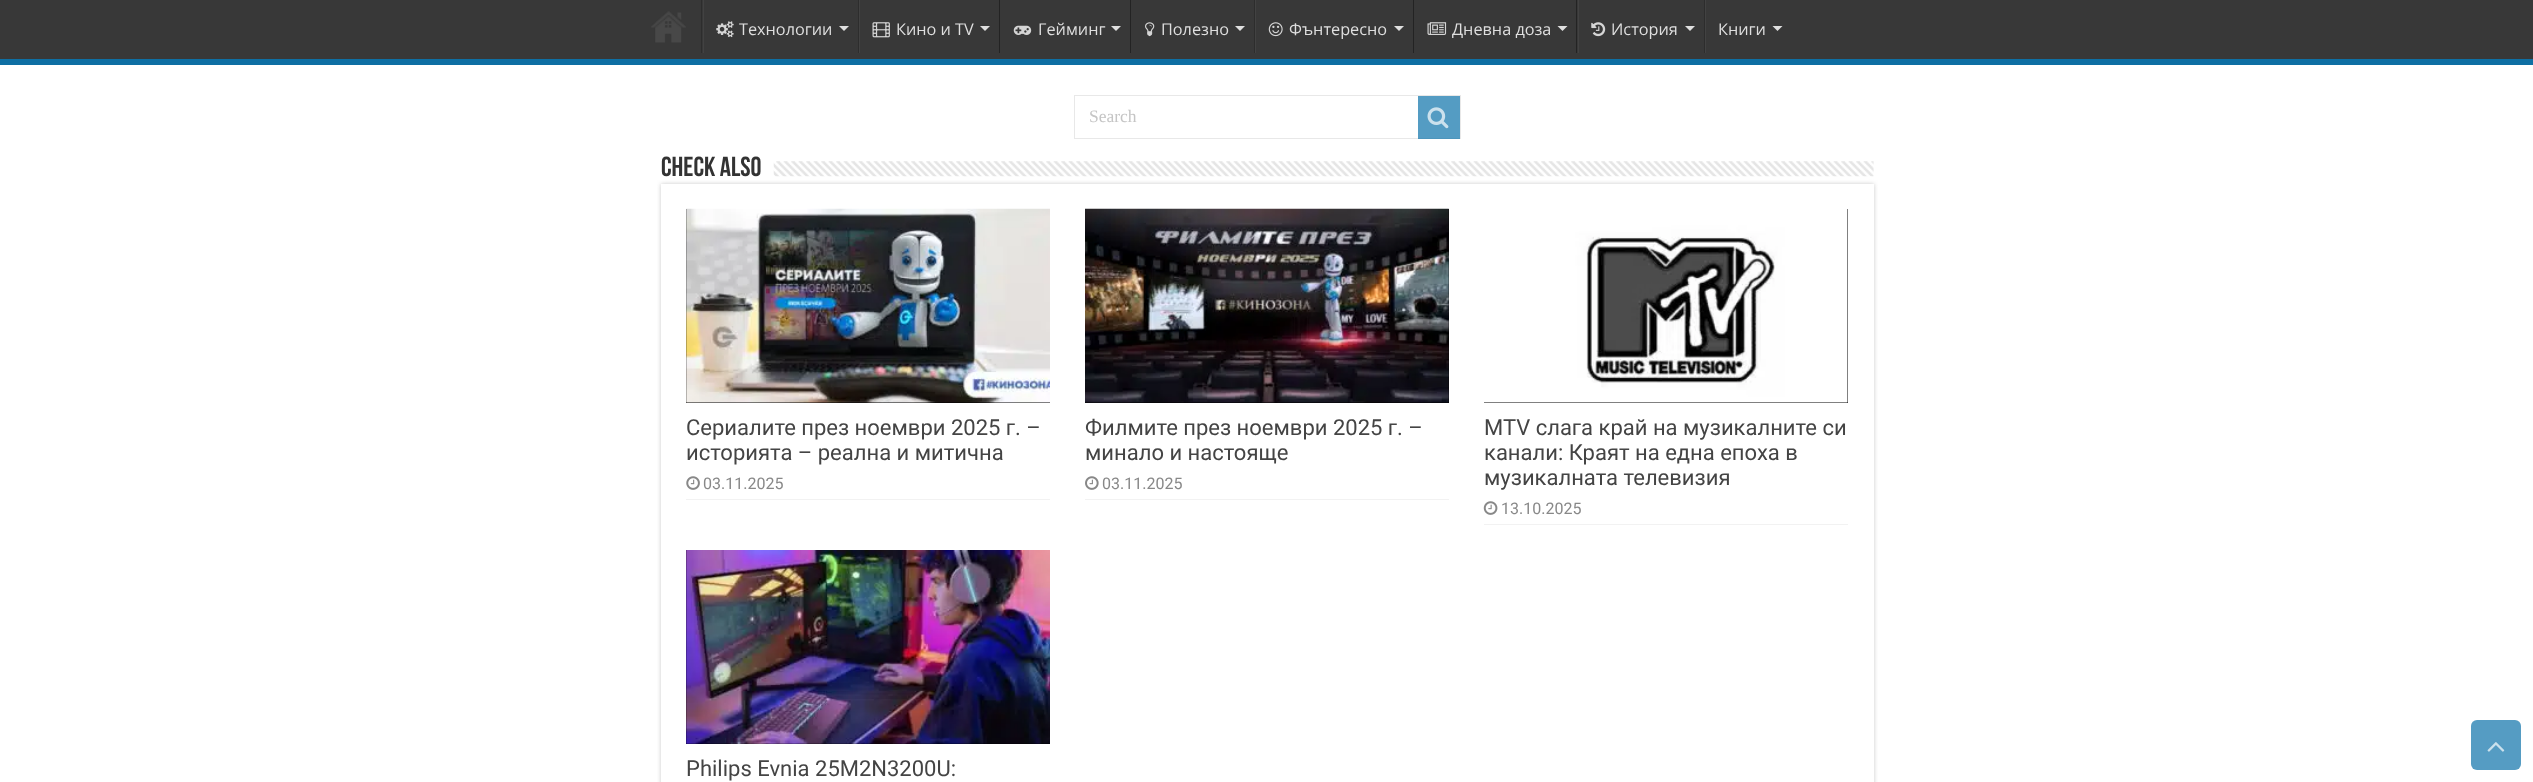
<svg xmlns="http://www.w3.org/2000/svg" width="2533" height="782">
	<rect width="100%" height="100%" fill="#FFFFFF" />
	<rect x="0" y="0" width="2533" height="65" fill="#2D2D2D" fill-opacity="0.95" />
	<rect x="0" y="59" width="2533" height="6" fill="#0C72A9" fill-opacity="0.95" />
	<image x="651" y="11" width="35" height="32" href="assets/img1.png" />
	<rect x="701" y="0" width="1" height="53" fill="#2D2D2D" />
	<rect x="703" y="0" width="1" height="53" fill="#424242" />
	<image x="716" y="21" width="18" height="17" href="assets/img2.png" />
	<text x="739" y="35" font-family="Open Sans" font-size="16.25" fill="#DFDFDF">Технологии</text>
	<path d="M839 26H849L844 31Z" fill="#DFDFDF" />
	<rect x="858" y="0" width="1" height="53" fill="#2D2D2D" />
	<rect x="859" y="0" width="1" height="53" fill="#424242" />
	<image x="872" y="22" width="18" height="16" href="assets/img3.png" />
	<text x="896" y="35" font-family="Open Sans" font-size="16.25" fill="#DFDFDF">Кино и TV</text>
	<path d="M980 26H990L985 31Z" fill="#DFDFDF" />
	<rect x="999" y="0" width="1" height="53" fill="#222222" fill-opacity="0.95" />
	<image x="1013" y="25" width="19" height="10" href="assets/img4.png" />
	<text x="1038" y="35" font-family="Open Sans" font-size="16.25" fill="#DFDFDF">Гейминг</text>
	<path d="M1111 26H1121L1116 31Z" fill="#DFDFDF" />
	<rect x="1130" y="0" width="1" height="53" fill="#222222" fill-opacity="0.95" />
	<image x="1145" y="22" width="10" height="15" href="assets/img5.png" />
	<text x="1161" y="35" font-family="Open Sans" font-size="16.25" fill="#DFDFDF">Полезно</text>
	<path d="M1235 26H1245L1240 31Z" fill="#DFDFDF" />
	<rect x="1254" y="0" width="1" height="53" fill="#2D2D2D" />
	<rect x="1255" y="0" width="1" height="53" fill="#424242" />
	<image x="1268" y="22" width="15" height="15" href="assets/img6.png" />
	<text x="1289" y="35" font-family="Open Sans" font-size="16.25" fill="#DFDFDF">Фънтересно</text>
	<path d="M1394 26H1404L1399 31Z" fill="#DFDFDF" />
	<rect x="1413" y="0" width="1" height="53" fill="#222222" fill-opacity="0.95" />
	<image x="1427" y="22" width="20" height="13" href="assets/img7.png" />
	<text x="1452" y="35" font-family="Open Sans" font-size="16.25" fill="#DFDFDF">Дневна доза</text>
	<path d="M1557.5 26H1567.5L1562.5 31Z" fill="#DFDFDF" />
	<rect x="1576" y="0" width="1" height="53" fill="#222222" fill-opacity="0.95" />
	<rect x="1578" y="0" width="1" height="53" fill="#424242" />
	<image x="1591" y="22" width="15" height="15" href="assets/img8.png" />
	<text x="1611" y="35" font-family="Open Sans" font-size="16.25" fill="#DFDFDF">История</text>
	<path d="M1685 26H1695L1690 31Z" fill="#DFDFDF" />
	<rect x="1704" y="0" width="1" height="53" fill="#2D2D2D" />
	<rect x="1705" y="0" width="1" height="53" fill="#424242" />
	<text x="1718" y="35" font-family="Open Sans" font-size="16.25" fill="#DFDFDF">Книги</text>
	<path d="M1772.5 26H1782.5L1777.5 31Z" fill="#DFDFDF" />
	<rect x="1074.5" y="95.5" width="386" height="43" fill="none" stroke="#E8E8E8" />
	<text x="1089" y="122" font-family="Liberation Serif" font-size="17.5" fill="#C5C5C5">Search</text>
	<rect x="1418" y="96" width="42" height="43" fill="#0C72A9" fill-opacity="0.7" />
	<image x="1427" y="107" width="22" height="22" href="assets/img9.png" />
	<text x="661" y="176" font-family="Bebas Neue" font-size="27.5" font-weight="700" fill="#333333">Check Also</text>
	<image x="773" y="161" width="1101" height="16" href="assets/img10.png" />
	<rect x="661" y="184" width="1213" height="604" fill="#CACACA" filter="blur(2px)" />
	<rect x="661" y="184" width="1213" height="598" fill="#FFFFFF" />
	<rect x="686" y="209" width="364" height="194" fill="#000000" />
	<image x="686" y="208" width="364" height="195" href="assets/img11.png" />
	<g font-family="Roboto" font-size="22" fill="#444444">
		<text x="686" y="435">Сериалите през ноември 2025 г. –</text>
		<text x="686" y="460">историята – реална и митична</text>
	</g>
	<rect x="686" y="499" width="364" height="1" fill="#F2F2F2" />
	<image x="686" y="476" width="14" height="14" href="assets/img12.png" />
	<text x="703" y="489" font-family="Roboto" font-size="16" fill="#888888">03.11.2025</text>
	<rect x="1085" y="209" width="364" height="194" fill="#000000" />
	<image x="1085" y="208" width="364" height="195" href="assets/img13.png" />
	<g font-family="Roboto" font-size="22" fill="#444444">
		<text x="1085" y="435">Филмите през ноември 2025 г. –</text>
		<text x="1085" y="460">минало и настояще</text>
	</g>
	<rect x="1085" y="499" width="364" height="1" fill="#F2F2F2" />
	<image x="1085" y="476" width="14" height="14" href="assets/img14.png" />
	<text x="1102" y="489" font-family="Roboto" font-size="16" fill="#888888">03.11.2025</text>
	<rect x="1484" y="209" width="364" height="194" fill="#000000" />
	<image x="1484" y="209" width="364" height="194" href="assets/img15.png" />
	<g font-family="Roboto" font-size="22" fill="#444444">
		<text x="1484" y="435">MTV слага край на музикалните си</text>
		<text x="1484" y="460">канали: Краят на една епоха в</text>
		<text x="1484" y="485">музикалната телевизия</text>
	</g>
	<rect x="1484" y="524" width="364" height="1" fill="#F2F2F2" />
	<image x="1483" y="501" width="15" height="14" href="assets/img16.png" />
	<text x="1501" y="514" font-family="Roboto" font-size="16" fill="#888888">13.10.2025</text>
	<rect x="686" y="550" width="364" height="194" fill="#000000" />
	<image x="686" y="550" width="364" height="194" href="assets/img17.png" />
	<text x="686" y="776" font-family="Roboto" font-size="22" fill="#444444">Philips Evnia 25M2N3200U:</text>
	<rect x="2471" y="720" width="50" height="50" rx="6" fill="#559CC3" />
	<image x="2487" y="742" width="18" height="10" href="assets/img18.png" />
</svg>
